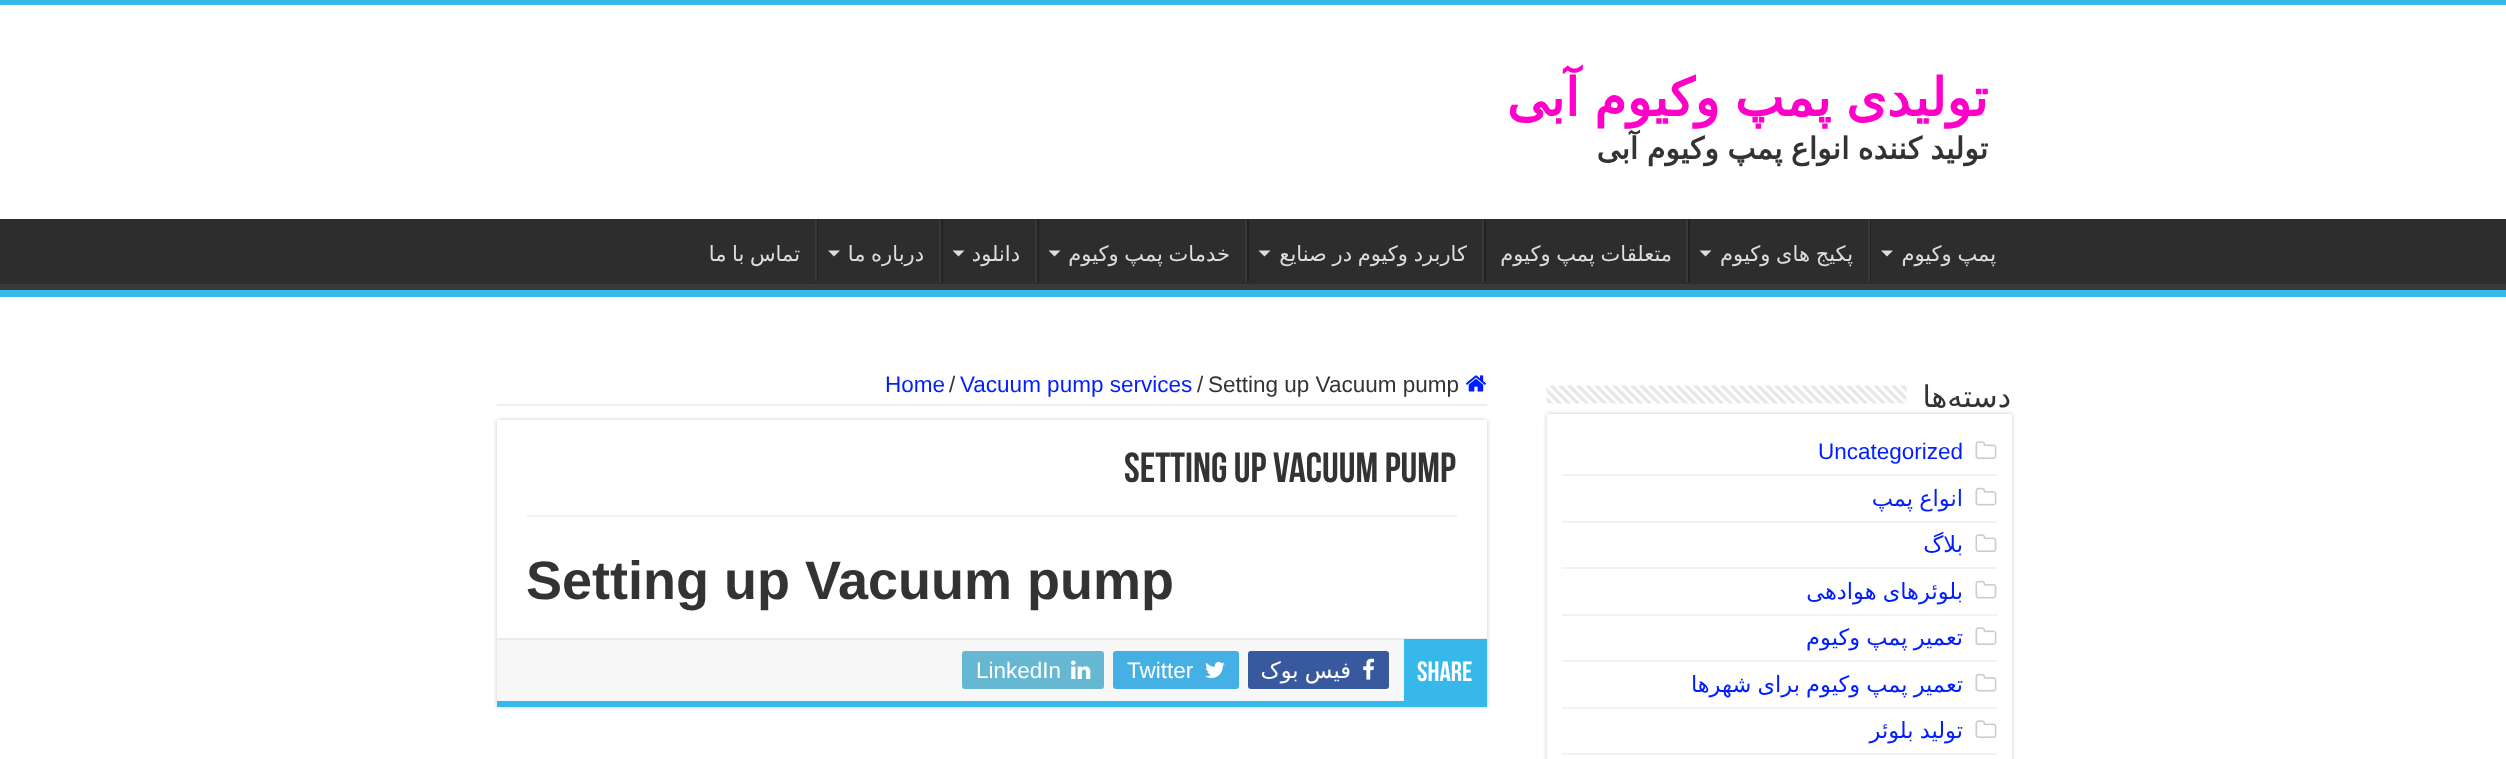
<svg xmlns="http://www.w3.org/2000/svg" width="2506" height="759">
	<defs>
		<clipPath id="clip1"><rect x="0" y="219" width="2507" height="71" /></clipPath>
	</defs>
	<rect width="100%" height="100%" fill="#FFFFFF" />
	<rect x="0" y="0" width="2506" height="5" fill="#37B8EB" />
	<text x="1988" y="116" word-spacing="-2" font-family="DejaVu Sans" font-size="52.5" font-weight="700" direction="rtl" fill="#FF00C8">تولیدی پمپ وکیوم آبی</text>
	<text x="1988" y="159" word-spacing="-1" font-family="DejaVu Sans" font-size="30" font-weight="700" direction="rtl" fill="#333333">تولید کننده انواع پمپ وکیوم آبی</text>
	<rect x="0" y="219" width="2506" height="65" fill="#2D2D2D" />
	<g clip-path="url(#clip1)">
		<path d="M-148 70H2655V438H-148ZM-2 210H2505C2506 210 2506 211 2506 212V282C2506 283 2506 284 2505 284H-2C-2 284-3 283-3 282V212C-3 211-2 210-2 210Z" fill="#393939" fill-rule="evenodd" />
	</g>
	<rect x="0" y="290" width="2506" height="7" fill="#37B8EB" />
	<text x="1996" y="261" word-spacing="-1" font-family="DejaVu Sans" font-size="21" direction="rtl" fill="#DDDDDD">پمپ وکیوم</text>
	<path d="M1881 250.5H1893L1887 256.5Z" fill="#DDDDDD" />
	<rect x="1870" y="219" width="1" height="63" fill="#222222" />
	<rect x="1868" y="219" width="2" height="63" fill="#383838" />
	<text x="1853" y="261" word-spacing="-1" font-family="DejaVu Sans" font-size="21" direction="rtl" fill="#DDDDDD">پکیج های وکیوم</text>
	<path d="M1699.5 250.5H1711.5L1705.5 256.5Z" fill="#DDDDDD" />
	<rect x="1688" y="219" width="2" height="63" fill="#222222" />
	<rect x="1686" y="219" width="2" height="63" fill="#383838" />
	<text x="1672" y="261" word-spacing="-1" font-family="DejaVu Sans" font-size="21" direction="rtl" fill="#DDDDDD">متعلقات پمپ وکیوم</text>
	<rect x="1484" y="219" width="2" height="63" fill="#222222" />
	<rect x="1482" y="219" width="2" height="63" fill="#383838" />
	<text x="1467" y="261" word-spacing="-1" font-family="DejaVu Sans" font-size="21" direction="rtl" fill="#DDDDDD">کاربرد وکیوم در صنایع</text>
	<path d="M1258.5 250.5H1270.5L1264.5 256.5Z" fill="#DDDDDD" />
	<rect x="1247" y="219" width="2" height="63" fill="#222222" />
	<rect x="1245" y="219" width="2" height="63" fill="#383838" />
	<text x="1230" y="261" word-spacing="-1" font-family="DejaVu Sans" font-size="21" direction="rtl" fill="#DDDDDD">خدمات پمپ وکیوم</text>
	<path d="M1048.5 250.5H1060.5L1054.5 256.5Z" fill="#DDDDDD" />
	<rect x="1037" y="219" width="2" height="63" fill="#222222" />
	<rect x="1035" y="219" width="2" height="63" fill="#383838" />
	<text x="1020" y="261" font-family="DejaVu Sans" font-size="21" direction="rtl" fill="#DDDDDD">دانلود</text>
	<path d="M952.5 250.5H964.5L958.5 256.5Z" fill="#DDDDDD" />
	<rect x="941" y="219" width="2" height="63" fill="#222222" />
	<rect x="939" y="219" width="2" height="63" fill="#383838" />
	<text x="924" y="261" word-spacing="-1" font-family="DejaVu Sans" font-size="21" direction="rtl" fill="#DDDDDD">درباره ما</text>
	<path d="M828 250.5H840L834 256.5Z" fill="#DDDDDD" />
	<rect x="817" y="219" width="1" height="63" fill="#222222" />
	<rect x="815" y="219" width="2" height="63" fill="#383838" />
	<text x="800" y="261" word-spacing="-1" font-family="DejaVu Sans" font-size="21" direction="rtl" fill="#DDDDDD">تماس با ما</text>
	<rect x="1547" y="414" width="465" height="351" fill="#CACACA" filter="blur(2px)" />
	<text x="2011" y="407" font-family="DejaVu Sans" font-size="30" direction="rtl" fill="#333333">دسته‌ها</text>
	<image x="1546" y="385" width="361" height="19" href="assets/img1.png" />
	<rect x="1547" y="414" width="465" height="345" fill="#FFFFFF" />
	<rect x="1562" y="474" width="435" height="2" fill="#F2F2F2" />
	<image x="1975" y="441" width="22" height="18" href="assets/img2.png" />
	<text x="1818" y="459" font-family="Liberation Sans" font-size="22.5" fill="#001EFF">Uncategorized</text>
	<rect x="1562" y="521" width="435" height="2" fill="#F2F2F2" />
	<image x="1975" y="487" width="22" height="19" href="assets/img3.png" />
	<text x="1963" y="506" word-spacing="-1" font-family="DejaVu Sans" font-size="22.5" direction="rtl" fill="#001EFF">انواع پمپ</text>
	<rect x="1562" y="567" width="435" height="2" fill="#F2F2F2" />
	<image x="1975" y="534" width="22" height="18" href="assets/img2.png" />
	<text x="1963" y="552" font-family="DejaVu Sans" font-size="22.5" direction="rtl" fill="#001EFF">بلاگ</text>
	<rect x="1562" y="614" width="435" height="2" fill="#F2F2F2" />
	<image x="1975" y="580" width="22" height="19" href="assets/img3.png" />
	<text x="1963" y="599" word-spacing="-1" font-family="DejaVu Sans" font-size="22.5" direction="rtl" fill="#001EFF">بلوئرهای هوادهی</text>
	<rect x="1562" y="660" width="435" height="2" fill="#F2F2F2" />
	<image x="1975" y="627" width="22" height="18" href="assets/img2.png" />
	<text x="1963" y="645" word-spacing="-1" font-family="DejaVu Sans" font-size="22.5" direction="rtl" fill="#001EFF">تعمیر پمپ وکیوم</text>
	<rect x="1562" y="707" width="435" height="2" fill="#F2F2F2" />
	<image x="1975" y="673" width="22" height="19" href="assets/img3.png" />
	<text x="1963" y="692" word-spacing="-1" font-family="DejaVu Sans" font-size="22.5" direction="rtl" fill="#001EFF">تعمیر پمپ وکیوم برای شهرها</text>
	<rect x="1562" y="753" width="435" height="2" fill="#F2F2F2" />
	<image x="1975" y="720" width="22" height="18" href="assets/img2.png" />
	<text x="1963" y="738" word-spacing="-1" font-family="DejaVu Sans" font-size="22.5" direction="rtl" fill="#001EFF">تولید بلوئر</text>
	<rect x="497" y="404" width="990" height="2" fill="#EEEEEE" />
	<g font-family="Liberation Sans" font-size="22.5" fill="#333333">
		<text x="1208" y="392">Setting up Vacuum pump</text>
		<text x="1197" y="392">/</text>
	</g>
	<text x="960" y="392" font-family="Liberation Sans" font-size="22.5" fill="#001EFF">Vacuum pump services</text>
	<text x="949" y="392" font-family="Liberation Sans" font-size="22.5" fill="#333333">/</text>
	<image x="1465" y="375" width="21" height="17" href="assets/img4.png" />
	<text x="885" y="392" font-family="Liberation Sans" font-size="22.5" fill="#001EFF">Home</text>
	<rect x="497" y="420" width="990" height="287" fill="#CACACA" filter="blur(2px)" />
	<rect x="497" y="420" width="990" height="218" fill="#FFFFFF" />
	<rect x="497" y="701" width="990" height="6" fill="#37B8EB" />
	<text x="1124" y="482" font-family="Bebas Neue" font-size="42" font-weight="700" fill="#333333">Setting up Vacuum pump</text>
	<rect x="527" y="515" width="930" height="2" fill="#F2F2F2" />
	<text x="526" y="599" font-family="Liberation Sans" font-size="54" font-weight="700" fill="#333333">Setting up Vacuum pump</text>
	<rect x="497" y="640" width="907" height="61" fill="#F7F7F7" />
	<rect x="497" y="638" width="990" height="2" fill="#EAEAEA" />
	<rect x="1404" y="639" width="83" height="62" fill="#37B8EB" />
	<text x="1417" y="681" font-family="Bebas Neue" font-size="28" font-weight="700" fill="#FFFFFF">Share</text>
	<rect x="1248" y="651" width="141" height="38" rx="3" fill="#39599F" />
	<image x="1363" y="658" width="12" height="22" href="assets/img5.png" />
	<text x="1351" y="678" word-spacing="-1" font-family="DejaVu Sans" font-size="22.5" direction="rtl" fill="#FFFFFF">فیس بوک</text>
	<rect x="1113" y="651" width="126" height="38" rx="3" fill="#45B0E3" />
	<image x="1205" y="661" width="20" height="17" href="assets/img6.png" />
	<text x="1127" y="678" font-family="Liberation Sans" font-size="22.5" fill="#FFFFFF">Twitter</text>
	<rect x="962" y="651" width="142" height="38" rx="3" fill="#65B7D2" />
	<image x="1071" y="660" width="20" height="19" href="assets/img7.png" />
	<text x="976" y="678" font-family="Liberation Sans" font-size="22.5" fill="#FFFFFF">LinkedIn</text>
</svg>
